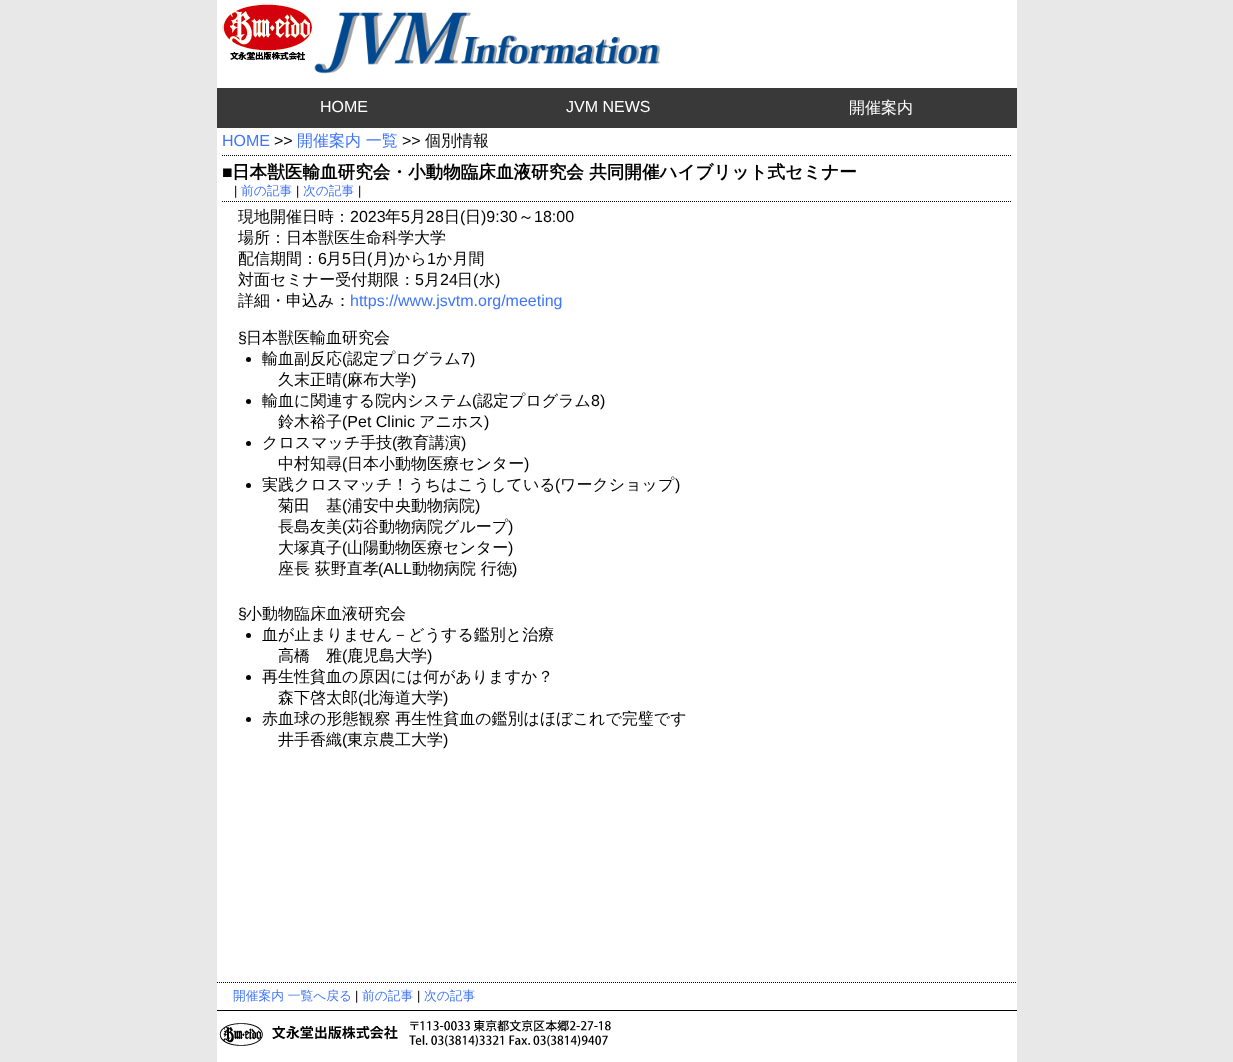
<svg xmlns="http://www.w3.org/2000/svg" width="1233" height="1062">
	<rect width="100%" height="100%" fill="#E8E8E8" />
	<rect x="217" y="0" width="800" height="1062" fill="#FFFFFF" />
	<image x="222" y="3" width="91" height="58" href="assets/img1.png" />
	<image x="314" y="12" width="347" height="62" href="assets/img2.png" />
	<rect x="217" y="88" width="800" height="40" fill="#393939" />
	<g font-family="Liberation Sans" font-size="16" fill="#FFFFFF">
		<text x="320" y="112">HOME</text>
		<text x="566" y="112">JVM NEWS</text>
	</g>
	<text x="849" y="113" font-family="WenQuanYi Zen Hei" font-size="16" font-weight="500" fill="#FFFFFF">開催案内</text>
	<text x="222" y="146" font-family="Liberation Sans" font-size="16" fill="#3F75FB">HOME</text>
	<text x="274" y="146" font-family="Liberation Sans" font-size="16" fill="#000000">&gt;&gt;</text>
	<text x="297" y="146" font-family="WenQuanYi Zen Hei" font-size="16" font-weight="500" fill="#3F75FB">開催案内 一覧</text>
	<text x="402" y="146" font-family="Liberation Sans" font-size="16" fill="#000000">&gt;&gt;</text>
	<text x="425" y="146" font-family="WenQuanYi Zen Hei" font-size="16" font-weight="500" fill="#000000">個別情報</text>
	<path d="M222 155.5H1012" fill="none" stroke="#000000" stroke-dasharray="1 1" />
	<path d="M222 201.5H1012" fill="none" stroke="#000000" stroke-dasharray="1 1" />
	<text x="222" y="178" font-family="Liberation Sans" font-size="17.6" font-weight="700" fill="#000000">■</text>
	<text x="232" y="178" font-family="WenQuanYi Zen Hei" font-size="17.6" font-weight="700" fill="#000000">日本獣医輸血研究会・小動物臨床血液研究会 共同開催ハイブリット式セミナー</text>
	<text x="234" y="195" font-family="Liberation Sans" font-size="12.75" fill="#000000">|</text>
	<text x="241" y="195" font-family="WenQuanYi Zen Hei" font-size="12.75" font-weight="500" fill="#3F75FB">前の記事</text>
	<text x="296" y="195" font-family="Liberation Sans" font-size="12.75" fill="#000000">|</text>
	<text x="303" y="195" font-family="WenQuanYi Zen Hei" font-size="12.75" font-weight="500" fill="#3F75FB">次の記事</text>
	<text x="358" y="195" font-family="Liberation Sans" font-size="12.75" fill="#000000">|</text>
	<text x="238" y="222" font-family="WenQuanYi Zen Hei" font-size="16" font-weight="500" fill="#000000">現地開催日時：</text>
	<text x="350" y="222" font-family="Liberation Sans" font-size="16" fill="#000000">2023</text>
	<text x="385" y="222" font-family="WenQuanYi Zen Hei" font-size="16" font-weight="500" fill="#000000">年</text>
	<text x="401" y="222" font-family="Liberation Sans" font-size="16" fill="#000000">5</text>
	<text x="410" y="222" font-family="WenQuanYi Zen Hei" font-size="16" font-weight="500" fill="#000000">月</text>
	<text x="426" y="222" font-family="Liberation Sans" font-size="16" fill="#000000">28</text>
	<text x="444" y="222" font-family="WenQuanYi Zen Hei" font-size="16" font-weight="500" fill="#000000">日</text>
	<text x="460" y="222" font-family="Liberation Sans" font-size="16" fill="#000000">(</text>
	<text x="465" y="222" font-family="WenQuanYi Zen Hei" font-size="16" font-weight="500" fill="#000000">日</text>
	<text x="481" y="222" font-family="Liberation Sans" font-size="16" fill="#000000">)9:30</text>
	<text x="518" y="222" font-family="WenQuanYi Zen Hei" font-size="16" font-weight="500" fill="#000000">～</text>
	<text x="534" y="222" font-family="Liberation Sans" font-size="16" fill="#000000">18:00</text>
	<g font-family="WenQuanYi Zen Hei" font-size="16" font-weight="500" fill="#000000">
		<text x="238" y="243">場所：日本獣医生命科学大学</text>
		<text x="238" y="264">配信期間：</text>
	</g>
	<text x="318" y="264" font-family="Liberation Sans" font-size="16" fill="#000000">6</text>
	<text x="326" y="264" font-family="WenQuanYi Zen Hei" font-size="16" font-weight="500" fill="#000000">月</text>
	<text x="342" y="264" font-family="Liberation Sans" font-size="16" fill="#000000">5</text>
	<text x="351" y="264" font-family="WenQuanYi Zen Hei" font-size="16" font-weight="500" fill="#000000">日</text>
	<text x="367" y="264" font-family="Liberation Sans" font-size="16" fill="#000000">(</text>
	<text x="373" y="264" font-family="WenQuanYi Zen Hei" font-size="16" font-weight="500" fill="#000000">月</text>
	<text x="389" y="264" font-family="Liberation Sans" font-size="16" fill="#000000">)</text>
	<text x="394" y="264" font-family="WenQuanYi Zen Hei" font-size="16" font-weight="500" fill="#000000">から</text>
	<text x="427" y="264" font-family="Liberation Sans" font-size="16" fill="#000000">1</text>
	<g font-family="WenQuanYi Zen Hei" font-size="16" font-weight="500" fill="#000000">
		<text x="436" y="264">か月間</text>
		<text x="238" y="285">対面セミナー受付期限：</text>
	</g>
	<text x="415" y="285" font-family="Liberation Sans" font-size="16" fill="#000000">5</text>
	<text x="424" y="285" font-family="WenQuanYi Zen Hei" font-size="16" font-weight="500" fill="#000000">月</text>
	<text x="440" y="285" font-family="Liberation Sans" font-size="16" fill="#000000">24</text>
	<text x="457" y="285" font-family="WenQuanYi Zen Hei" font-size="16" font-weight="500" fill="#000000">日</text>
	<text x="473" y="285" font-family="Liberation Sans" font-size="16" fill="#000000">(</text>
	<text x="479" y="285" font-family="WenQuanYi Zen Hei" font-size="16" font-weight="500" fill="#000000">水</text>
	<text x="495" y="285" font-family="Liberation Sans" font-size="16" fill="#000000">)</text>
	<text x="238" y="306" font-family="WenQuanYi Zen Hei" font-size="16" font-weight="500" fill="#000000">詳細・申込み：</text>
	<text x="350" y="306" font-family="Liberation Sans" font-size="16" fill="#3F75FB">https://www.jsvtm.org/meeting</text>
	<text x="238" y="343" font-family="Liberation Sans" font-size="16" fill="#000000">§</text>
	<text x="246" y="343" font-family="WenQuanYi Zen Hei" font-size="16" font-weight="500" fill="#000000">日本獣医輸血研究会</text>
	<circle cx="248.5" cy="359.5" r="2.5" fill="#000000" />
	<text x="262" y="364" font-family="WenQuanYi Zen Hei" font-size="16" font-weight="500" fill="#000000">輸血副反応</text>
	<text x="342" y="364" font-family="Liberation Sans" font-size="16" fill="#000000">(</text>
	<text x="347" y="364" font-family="WenQuanYi Zen Hei" font-size="16" font-weight="500" fill="#000000">認定プログラム</text>
	<text x="461" y="364" font-family="Liberation Sans" font-size="16" fill="#000000">7)</text>
	<text x="278" y="385" font-family="WenQuanYi Zen Hei" font-size="16" font-weight="500" fill="#000000">久末正晴</text>
	<text x="342" y="385" font-family="Liberation Sans" font-size="16" fill="#000000">(</text>
	<text x="347" y="385" font-family="WenQuanYi Zen Hei" font-size="16" font-weight="500" fill="#000000">麻布大学</text>
	<text x="411" y="385" font-family="Liberation Sans" font-size="16" fill="#000000">)</text>
	<circle cx="248.5" cy="401.5" r="2.5" fill="#000000" />
	<text x="262" y="406" font-family="WenQuanYi Zen Hei" font-size="16" font-weight="500" fill="#000000">輸血に関連する院内システム</text>
	<text x="472" y="406" font-family="Liberation Sans" font-size="16" fill="#000000">(</text>
	<text x="477" y="406" font-family="WenQuanYi Zen Hei" font-size="16" font-weight="500" fill="#000000">認定プログラム</text>
	<text x="591" y="406" font-family="Liberation Sans" font-size="16" fill="#000000">8)</text>
	<text x="278" y="427" font-family="WenQuanYi Zen Hei" font-size="16" font-weight="500" fill="#000000">鈴木裕子</text>
	<text x="342" y="427" font-family="Liberation Sans" font-size="16" fill="#000000">(Pet Clinic</text>
	<text x="419" y="427" font-family="WenQuanYi Zen Hei" font-size="16" font-weight="500" fill="#000000">アニホス</text>
	<text x="484" y="427" font-family="Liberation Sans" font-size="16" fill="#000000">)</text>
	<circle cx="248.5" cy="443.5" r="2.5" fill="#000000" />
	<text x="262" y="448" font-family="WenQuanYi Zen Hei" font-size="16" font-weight="500" fill="#000000">クロスマッチ手技</text>
	<text x="392" y="448" font-family="Liberation Sans" font-size="16" fill="#000000">(</text>
	<text x="397" y="448" font-family="WenQuanYi Zen Hei" font-size="16" font-weight="500" fill="#000000">教育講演</text>
	<text x="461" y="448" font-family="Liberation Sans" font-size="16" fill="#000000">)</text>
	<text x="278" y="469" font-family="WenQuanYi Zen Hei" font-size="16" font-weight="500" fill="#000000">中村知尋</text>
	<text x="342" y="469" font-family="Liberation Sans" font-size="16" fill="#000000">(</text>
	<text x="347" y="469" font-family="WenQuanYi Zen Hei" font-size="16" font-weight="500" fill="#000000">日本小動物医療センター</text>
	<text x="524" y="469" font-family="Liberation Sans" font-size="16" fill="#000000">)</text>
	<circle cx="248.5" cy="485.5" r="2.5" fill="#000000" />
	<text x="262" y="490" font-family="WenQuanYi Zen Hei" font-size="16" font-weight="500" fill="#000000">実践クロスマッチ！うちはこうしている</text>
	<text x="555" y="490" font-family="Liberation Sans" font-size="16" fill="#000000">(</text>
	<text x="560" y="490" font-family="WenQuanYi Zen Hei" font-size="16" font-weight="500" fill="#000000">ワークショップ</text>
	<text x="675" y="490" font-family="Liberation Sans" font-size="16" fill="#000000">)</text>
	<text x="278" y="511" font-family="WenQuanYi Zen Hei" font-size="16" font-weight="500" fill="#000000">菊田　基</text>
	<text x="342" y="511" font-family="Liberation Sans" font-size="16" fill="#000000">(</text>
	<text x="347" y="511" font-family="WenQuanYi Zen Hei" font-size="16" font-weight="500" fill="#000000">浦安中央動物病院</text>
	<text x="475" y="511" font-family="Liberation Sans" font-size="16" fill="#000000">)</text>
	<text x="278" y="532" font-family="WenQuanYi Zen Hei" font-size="16" font-weight="500" fill="#000000">長島友美</text>
	<text x="342" y="532" font-family="Liberation Sans" font-size="16" fill="#000000">(</text>
	<text x="347" y="532" font-family="WenQuanYi Zen Hei" font-size="16" font-weight="500" fill="#000000">苅谷動物病院グループ</text>
	<text x="508" y="532" font-family="Liberation Sans" font-size="16" fill="#000000">)</text>
	<text x="278" y="553" font-family="WenQuanYi Zen Hei" font-size="16" font-weight="500" fill="#000000">大塚真子</text>
	<text x="342" y="553" font-family="Liberation Sans" font-size="16" fill="#000000">(</text>
	<text x="347" y="553" font-family="WenQuanYi Zen Hei" font-size="16" font-weight="500" fill="#000000">山陽動物医療センター</text>
	<text x="508" y="553" font-family="Liberation Sans" font-size="16" fill="#000000">)</text>
	<text x="278" y="574" font-family="WenQuanYi Zen Hei" font-size="16" font-weight="500" fill="#000000">座長 荻野直孝</text>
	<text x="378" y="574" font-family="Liberation Sans" font-size="16" fill="#000000">(ALL</text>
	<text x="412" y="574" font-family="WenQuanYi Zen Hei" font-size="16" font-weight="500" fill="#000000">動物病院 行徳</text>
	<g font-family="Liberation Sans" font-size="16" fill="#000000">
		<text x="512" y="574">)</text>
		<text x="238" y="619">§</text>
	</g>
	<text x="246" y="619" font-family="WenQuanYi Zen Hei" font-size="16" font-weight="500" fill="#000000">小動物臨床血液研究会</text>
	<circle cx="248.5" cy="635.5" r="2.5" fill="#000000" />
	<g font-family="WenQuanYi Zen Hei" font-size="16" font-weight="500" fill="#000000">
		<text x="262" y="640">血が止まりません－どうする鑑別と治療</text>
		<text x="278" y="661">高橋　雅</text>
	</g>
	<text x="342" y="661" font-family="Liberation Sans" font-size="16" fill="#000000">(</text>
	<text x="347" y="661" font-family="WenQuanYi Zen Hei" font-size="16" font-weight="500" fill="#000000">鹿児島大学</text>
	<text x="427" y="661" font-family="Liberation Sans" font-size="16" fill="#000000">)</text>
	<circle cx="248.5" cy="677.5" r="2.5" fill="#000000" />
	<g font-family="WenQuanYi Zen Hei" font-size="16" font-weight="500" fill="#000000">
		<text x="262" y="682">再生性貧血の原因には何がありますか？</text>
		<text x="278" y="703">森下啓太郎</text>
	</g>
	<text x="358" y="703" font-family="Liberation Sans" font-size="16" fill="#000000">(</text>
	<text x="363" y="703" font-family="WenQuanYi Zen Hei" font-size="16" font-weight="500" fill="#000000">北海道大学</text>
	<text x="443" y="703" font-family="Liberation Sans" font-size="16" fill="#000000">)</text>
	<circle cx="248.5" cy="719.5" r="2.5" fill="#000000" />
	<g font-family="WenQuanYi Zen Hei" font-size="16" font-weight="500" fill="#000000">
		<text x="262" y="724">赤血球の形態観察 再生性貧血の鑑別はほぼこれで完璧です</text>
		<text x="278" y="745">井手香織</text>
	</g>
	<text x="342" y="745" font-family="Liberation Sans" font-size="16" fill="#000000">(</text>
	<text x="347" y="745" font-family="WenQuanYi Zen Hei" font-size="16" font-weight="500" fill="#000000">東京農工大学</text>
	<text x="443" y="745" font-family="Liberation Sans" font-size="16" fill="#000000">)</text>
	<path d="M217 982.5H1017" fill="none" stroke="#000000" stroke-dasharray="1 1" />
	<text x="233" y="1000" font-family="WenQuanYi Zen Hei" font-size="12.75" font-weight="500" fill="#3F75FB">開催案内 一覧へ戻る</text>
	<text x="355" y="1000" font-family="Liberation Sans" font-size="12.75" fill="#000000">|</text>
	<text x="362" y="1000" font-family="WenQuanYi Zen Hei" font-size="12.75" font-weight="500" fill="#3F75FB">前の記事</text>
	<text x="417" y="1000" font-family="Liberation Sans" font-size="12.75" fill="#000000">|</text>
	<text x="424" y="1000" font-family="WenQuanYi Zen Hei" font-size="12.75" font-weight="500" fill="#3F75FB">次の記事</text>
	<rect x="217" y="1010" width="800" height="1" fill="#000000" />
	<image x="219" y="1020" width="392" height="27" href="assets/img3.png" />
</svg>
